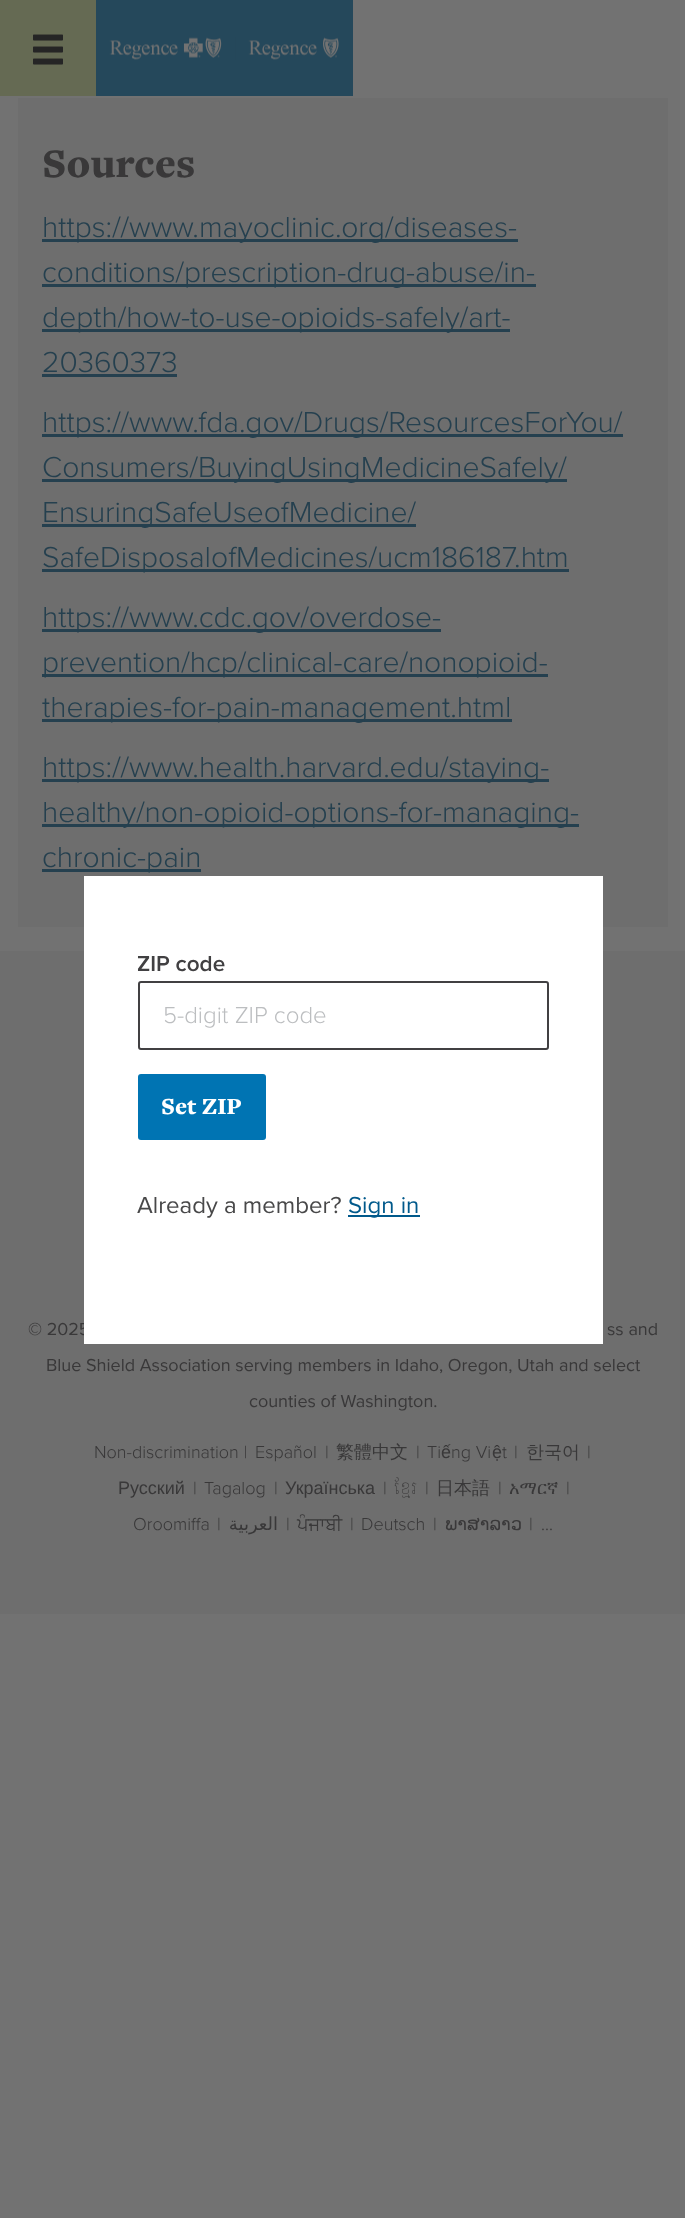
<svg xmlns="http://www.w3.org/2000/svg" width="685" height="2218">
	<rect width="100%" height="100%" fill="#727272" />
	<rect x="0" y="0" width="96" height="96" fill="#656A53" />
	<image x="33" y="34" width="30" height="31" href="assets/img1.png" />
	<rect x="96" y="0" width="257" height="96" fill="#25485B" />
	<image x="109" y="37" width="230" height="23" href="assets/img2.png" />
	<rect x="18" y="98" width="650" height="829" fill="#6E6E6E" />
	<text x="42" y="177" font-family="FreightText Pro" font-size="42" font-weight="900" fill="#393839">Sources</text>
	<rect x="42" y="239" width="476" height="3" fill="#25404F" />
	<text x="42" y="237" font-family="Proxima Nova" font-size="30" font-weight="300" fill="#25404F">https://www.mayoclinic.org/diseases-</text>
	<rect x="42" y="284" width="494" height="3" fill="#25404F" />
	<text x="42" y="282" font-family="Proxima Nova" font-size="30" font-weight="300" fill="#25404F">conditions/prescription-drug-abuse/in-</text>
	<rect x="42" y="329" width="468" height="3" fill="#25404F" />
	<g font-family="Proxima Nova" font-size="30" font-weight="300" fill="#25404F">
		<text x="42" y="327">depth/how-to-use-opioids-safely/art-</text>
		<text x="42" y="372">20360373</text>
	</g>
	<rect x="42" y="374" width="135" height="3" fill="#25404F" />
	<rect x="42" y="434" width="581" height="3" fill="#25404F" />
	<text x="42" y="432" font-family="Proxima Nova" font-size="30" font-weight="300" fill="#25404F">https://www.fda.gov/Drugs/ResourcesForYou/</text>
	<rect x="42" y="479" width="525" height="3" fill="#25404F" />
	<text x="42" y="477" font-family="Proxima Nova" font-size="30" font-weight="300" fill="#25404F">Consumers/BuyingUsingMedicineSafely/</text>
	<rect x="42" y="524" width="374" height="3" fill="#25404F" />
	<text x="42" y="522" font-family="Proxima Nova" font-size="30" font-weight="300" fill="#25404F">EnsuringSafeUseofMedicine/</text>
	<rect x="42" y="569" width="527" height="3" fill="#25404F" />
	<text x="42" y="567" font-family="Proxima Nova" font-size="30" font-weight="300" fill="#25404F">SafeDisposalofMedicines/ucm186187.htm</text>
	<rect x="42" y="629" width="399" height="3" fill="#25404F" />
	<text x="42" y="627" font-family="Proxima Nova" font-size="30" font-weight="300" fill="#25404F">https://www.cdc.gov/overdose-</text>
	<rect x="42" y="674" width="506" height="3" fill="#25404F" />
	<text x="42" y="672" font-family="Proxima Nova" font-size="30" font-weight="300" fill="#25404F">prevention/hcp/clinical-care/nonopioid-</text>
	<rect x="42" y="719" width="470" height="3" fill="#25404F" />
	<text x="42" y="717" font-family="Proxima Nova" font-size="30" font-weight="300" fill="#25404F">therapies-for-pain-management.html</text>
	<rect x="42" y="779" width="507" height="3" fill="#25404F" />
	<text x="42" y="777" font-family="Proxima Nova" font-size="30" font-weight="300" fill="#25404F">https://www.health.harvard.edu/staying-</text>
	<rect x="42" y="824" width="537" height="3" fill="#25404F" />
	<text x="42" y="822" font-family="Proxima Nova" font-size="30" font-weight="300" fill="#25404F">healthy/non-opioid-options-for-managing-</text>
	<rect x="42" y="869" width="159" height="3" fill="#25404F" />
	<text x="42" y="867" font-family="Proxima Nova" font-size="30" font-weight="300" fill="#25404F">chronic-pain</text>
	<rect x="0" y="951" width="685" height="663" fill="#6E6E6E" />
	<text x="28" y="1335" font-family="Proxima Nova" font-size="18" fill="#393839">© 2025</text>
	<rect x="84" y="876" width="519" height="468" fill="#FFFFFF" />
	<text x="137" y="971" font-family="Proxima Nova" font-size="22.5" font-weight="600" fill="#414042">ZIP code</text>
	<rect x="139" y="982" width="409" height="67" rx="2" fill="none" stroke="#414042" stroke-width="2" />
	<text x="163" y="1023" font-family="Proxima Nova" font-size="24" font-weight="300" fill="#BCBEC0">5-digit ZIP code</text>
	<rect x="138" y="1074" width="128" height="66" rx="3" fill="#0074B3" />
	<text x="161" y="1114" font-family="FreightText Pro" font-size="24" font-weight="900" fill="#FFFFFF">Set ZIP</text>
	<text x="137" y="1213" font-family="Proxima Nova" font-size="24" fill="#484849">Already a member?</text>
	<rect x="348" y="1215" width="72" height="2" fill="#00598B" />
	<text x="348" y="1213" font-family="Proxima Nova" font-size="24" fill="#00598B">Sign in</text>
	<g font-family="Proxima Nova" font-size="18" fill="#393839">
		<text x="607" y="1335">ss and</text>
		<text x="46" y="1371">Blue Shield Association serving members in Idaho, Oregon, Utah and select</text>
		<text x="249" y="1407">counties of Washington.</text>
	</g>
	<g font-family="Proxima Nova" font-size="18" font-weight="300" fill="#393839">
		<text x="94" y="1458">Non-discrimination |</text>
		<text x="255" y="1458">Español</text>
		<text x="325" y="1458">|</text>
	</g>
	<text x="336" y="1458" font-family="WenQuanYi Zen Hei" font-size="18" font-weight="500" fill="#393839">繁體中文</text>
	<g font-family="Proxima Nova" font-size="18" font-weight="300" fill="#393839">
		<text x="416" y="1458">|</text>
		<text x="427" y="1458">Ti</text>
	</g>
	<text x="441" y="1458" font-family="Liberation Sans" font-size="18" fill="#393839">ế</text>
	<text x="451" y="1458" font-family="Proxima Nova" font-size="18" font-weight="300" fill="#393839">ng Vi</text>
	<text x="492" y="1458" font-family="Liberation Sans" font-size="18" fill="#393839">ệ</text>
	<g font-family="Proxima Nova" font-size="18" font-weight="300" fill="#393839">
		<text x="502" y="1458">t</text>
		<text x="514" y="1458">|</text>
	</g>
	<text x="526" y="1458" font-family="WenQuanYi Zen Hei" font-size="18" font-weight="500" fill="#393839">한국어</text>
	<text x="587" y="1458" font-family="Proxima Nova" font-size="18" font-weight="300" fill="#393839">|</text>
	<text x="118" y="1494" font-family="Liberation Sans" font-size="18" fill="#393839">Русский</text>
	<g font-family="Proxima Nova" font-size="18" font-weight="300" fill="#393839">
		<text x="193" y="1494">|</text>
		<text x="204" y="1494">Tagalog</text>
		<text x="274" y="1494">|</text>
	</g>
	<text x="285" y="1494" font-family="Liberation Sans" font-size="18" fill="#393839">Українська</text>
	<text x="383" y="1494" font-family="Proxima Nova" font-size="18" font-weight="300" fill="#393839">|</text>
	<text x="394" y="1494" font-family="Hanuman" font-size="18" font-weight="100" fill="#393839">ខ្មែរ</text>
	<text x="425" y="1494" font-family="Proxima Nova" font-size="18" font-weight="300" fill="#393839">|</text>
	<text x="436" y="1494" font-family="WenQuanYi Zen Hei" font-size="18" font-weight="500" fill="#393839">日本語</text>
	<text x="498" y="1494" font-family="Proxima Nova" font-size="18" font-weight="300" fill="#393839">|</text>
	<text x="509" y="1494" font-family="FreeSerif" font-size="18" fill="#393839">አማርኛ</text>
	<g font-family="Proxima Nova" font-size="18" font-weight="300" fill="#393839">
		<text x="566" y="1494">|</text>
		<text x="133" y="1530">Oroomiffa</text>
		<text x="217" y="1530">|</text>
	</g>
	<text x="278" y="1530" font-family="DejaVu Sans" font-size="18" direction="rtl" fill="#393839">العربية</text>
	<text x="286" y="1530" font-family="Proxima Nova" font-size="18" font-weight="300" fill="#393839">|</text>
	<text x="297" y="1530" font-family="FreeSans" font-size="18" fill="#393839">ਪੰਜਾਬੀ</text>
	<g font-family="Proxima Nova" font-size="18" font-weight="300" fill="#393839">
		<text x="350" y="1530">|</text>
		<text x="361" y="1530">Deutsch</text>
		<text x="433" y="1530">|</text>
	</g>
	<text x="445" y="1530" font-family="DejaVu Sans" font-size="18" fill="#393839">ພາສາລາວ</text>
	<g font-family="Proxima Nova" font-size="18" font-weight="300" fill="#393839">
		<text x="529" y="1530">|</text>
		<text x="541" y="1530">...</text>
	</g>
</svg>
